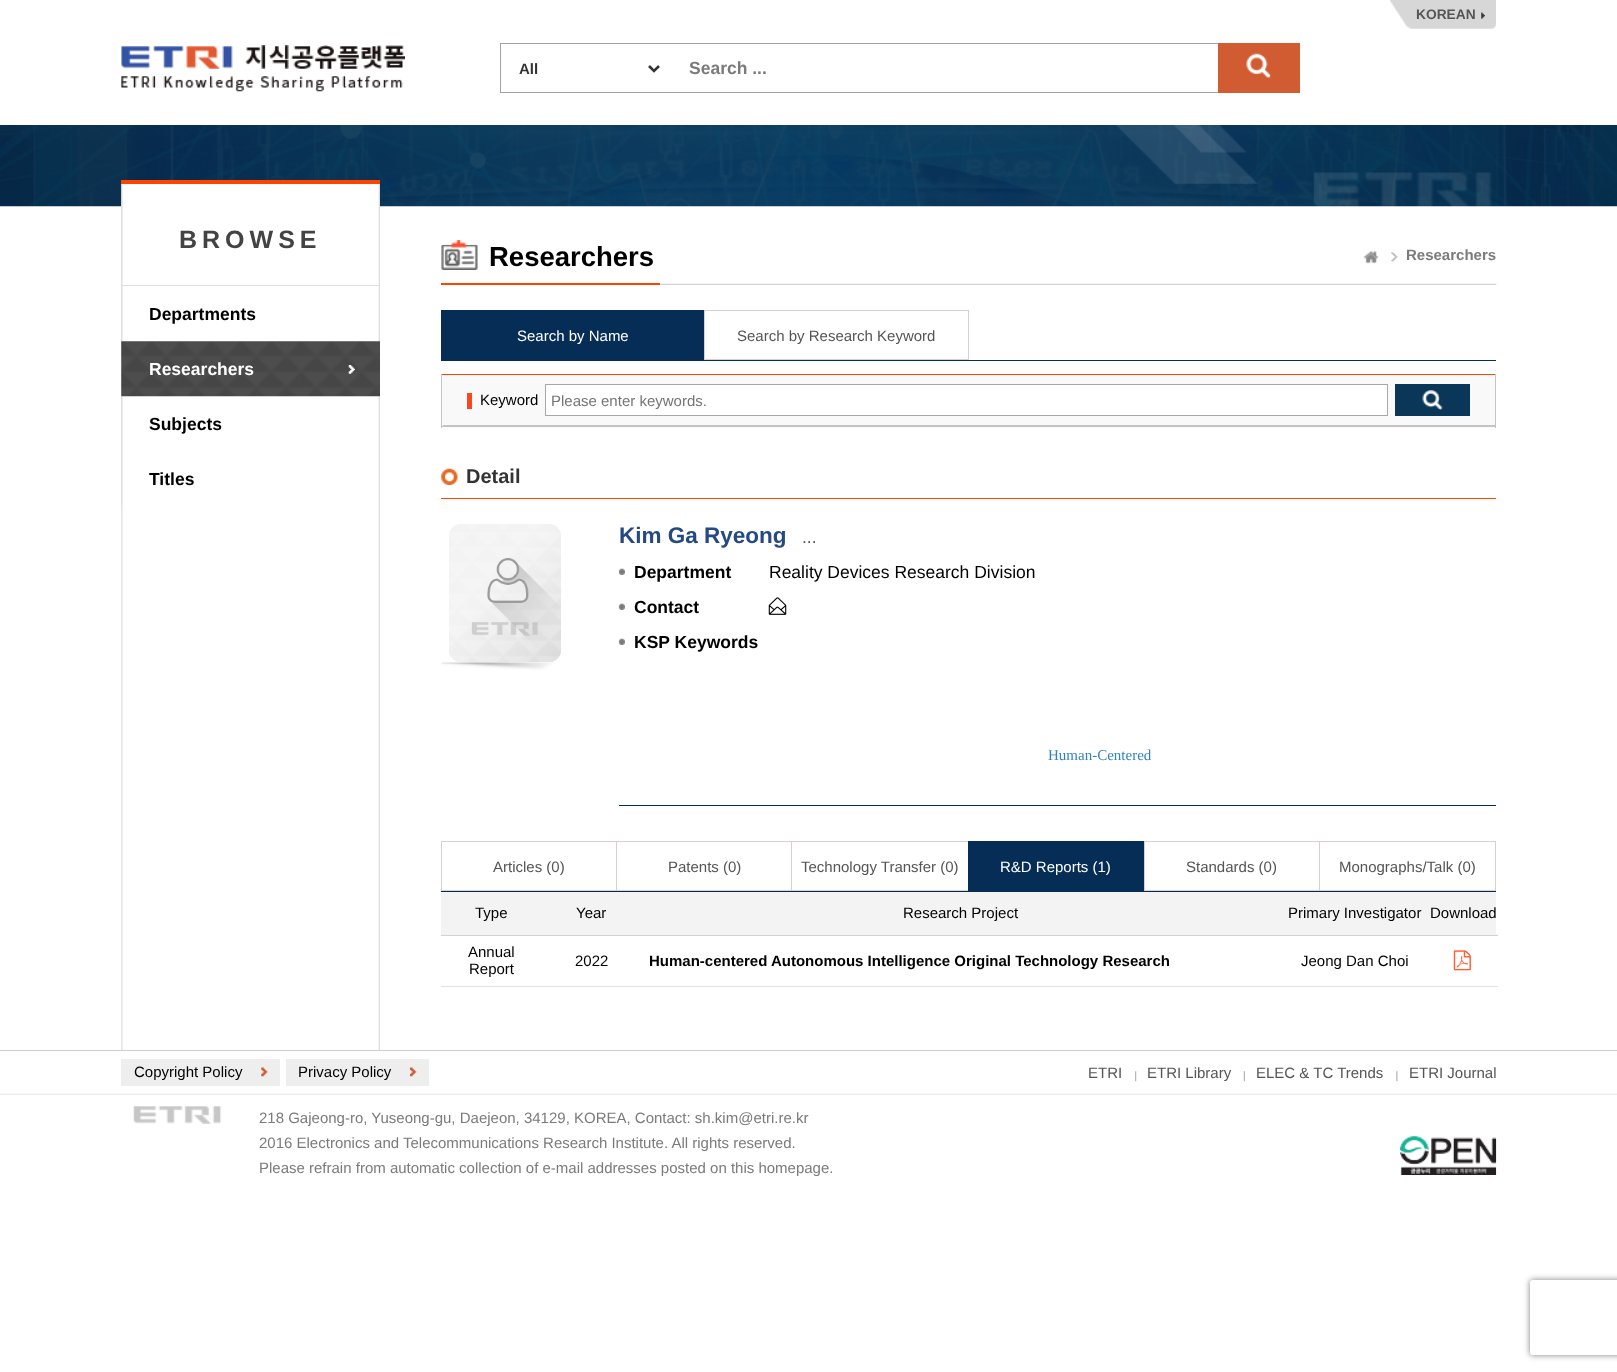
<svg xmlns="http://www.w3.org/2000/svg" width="1617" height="1372">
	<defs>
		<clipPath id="clip1"><path d="M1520 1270H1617V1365H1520ZM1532.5 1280H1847.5C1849 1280 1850 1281 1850 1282.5V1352.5C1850 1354 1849 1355 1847.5 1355H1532.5C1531 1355 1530 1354 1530 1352.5V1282.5C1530 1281 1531 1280 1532.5 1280Z" clip-rule="evenodd" /></clipPath>
	</defs>
	<rect width="100%" height="100%" fill="#FFFFFF" />
	<image x="1389" y="0" width="107" height="29" href="assets/img1.png" />
	<image x="1481" y="12" width="4" height="7" href="assets/img2.png" />
	<text x="1416" y="19" font-family="Liberation Sans" font-size="13.75" font-weight="700" fill="#555555">KOREAN</text>
	<image x="121" y="45" width="284" height="47" href="assets/img3.png" />
	<rect x="500.5" y="43.5" width="799" height="49" fill="none" stroke="#A2A2A2" />
	<path d="M649 66L654 71L659 66" fill="none" stroke="#333333" stroke-width="2.5" />
	<text x="519" y="74" font-family="Liberation Sans" font-size="15" font-weight="700" fill="#333333">All</text>
	<text x="689" y="74" font-family="Liberation Sans" font-size="17.5" font-weight="700" fill="#7B7B7B">Search ...</text>
	<rect x="1218" y="43" width="82" height="50" fill="#D25C31" />
	<image x="1246" y="53" width="25" height="25" href="assets/img4.png" />
	<image x="0" y="125" width="1617" height="82" href="assets/img5.png" />
	<image x="121" y="184" width="259" height="866" href="assets/img6.png" />
	<rect x="121" y="180" width="1" height="326" fill="#DEDEDE" fill-opacity="0.75" />
	<rect x="121" y="180" width="259" height="4" fill="#FF4400" />
	<rect x="121" y="285" width="259" height="1" fill="#DEDEDE" />
	<text x="179" y="248" font-family="Liberation Sans" font-size="25" font-weight="700" letter-spacing="5" fill="#434343">BROWSE</text>
	<text x="149" y="320" font-family="Liberation Sans" font-size="17.5" font-weight="700" fill="#000000">Departments</text>
	<image x="121" y="341" width="259" height="56" href="assets/img7.png" />
	<image x="348" y="365" width="7" height="9" href="assets/img8.png" />
	<text x="149" y="375" font-family="Liberation Sans" font-size="17.5" font-weight="700" fill="#FFFFFF">Researchers</text>
	<g font-family="Liberation Sans" font-size="17.5" font-weight="700" fill="#000000">
		<text x="149" y="430">Subjects</text>
		<text x="149" y="485">Titles</text>
	</g>
	<image x="660" y="283" width="837" height="2" href="assets/img9.png" />
	<image x="441" y="240" width="37" height="30" href="assets/img10.png" />
	<rect x="441" y="283" width="219" height="2" fill="#FF4400" />
	<text x="489" y="266" font-family="Liberation Sans" font-size="27.5" font-weight="700" fill="#000000">Researchers</text>
	<image x="1363" y="251" width="16" height="13" href="assets/img11.png" />
	<image x="1391" y="252" width="7" height="10" href="assets/img12.png" />
	<text x="1406" y="260" font-family="Liberation Sans" font-size="15" font-weight="700" fill="#7B7B7B">Researchers</text>
	<rect x="441" y="360" width="1055" height="1" fill="#052D55" />
	<rect x="441" y="310" width="263" height="50" fill="#052D55" />
	<text x="517" y="341" font-family="Liberation Sans" font-size="15" fill="#FFFFFF">Search by Name</text>
	<rect x="704.5" y="310.5" width="264" height="49" fill="none" stroke="#D9D0D0" />
	<text x="737" y="341" font-family="Liberation Sans" font-size="15" fill="#555555">Search by Research Keyword</text>
	<rect x="442" y="375" width="1053" height="53" fill="#F9F9F9" />
	<rect x="441" y="374" width="1055" height="1" fill="#FF4400" />
	<rect x="1495" y="374" width="1" height="54" fill="#C4C4C4" />
	<rect x="441" y="426" width="1055" height="1" fill="#C4C4C4" />
	<rect x="441" y="374" width="1" height="54" fill="#C4C4C4" />
	<rect x="467" y="393" width="5" height="16" fill="#FC461E" />
	<text x="480" y="405" font-family="Liberation Sans" font-size="15" fill="#000000">Keyword</text>
	<rect x="443" y="425" width="1053" height="1" fill="#C4C4C4" />
	<rect x="545.5" y="384.5" width="842" height="31" fill="#FFFFFF" stroke="#A7A7A7" />
	<text x="551" y="406" font-family="Liberation Sans" font-size="15" fill="#757575">Please enter keywords.</text>
	<rect x="1395" y="384" width="75" height="32" fill="#0A3758" />
	<image x="1422" y="390" width="21" height="20" href="assets/img13.png" />
	<rect x="441" y="498" width="1055" height="1" fill="#FF4400" />
	<image x="441" y="468" width="17" height="17" href="assets/img14.png" />
	<text x="466" y="483" font-family="Liberation Sans" font-size="20" font-weight="700" fill="#333333">Detail</text>
	<image x="441" y="662" width="111" height="8" href="assets/img15.png" />
	<image x="449" y="524" width="112" height="138" href="assets/img16.png" />
	<text x="619" y="543" font-family="Liberation Sans" font-size="22.5" font-weight="700" fill="#254982">Kim Ga Ryeong</text>
	<text x="802" y="543" font-family="Liberation Sans" font-size="17.5" fill="#555555">...</text>
	<image x="618" y="568" width="7" height="7" href="assets/img17.png" />
	<text x="634" y="578" font-family="Liberation Sans" font-size="17.5" font-weight="700" fill="#000000">Department</text>
	<text x="769" y="578" font-family="Liberation Sans" font-size="17.5" fill="#000000">Reality Devices Research Division</text>
	<image x="618" y="603" width="7" height="7" href="assets/img17.png" />
	<text x="634" y="613" font-family="Liberation Sans" font-size="17.5" font-weight="700" fill="#000000">Contact</text>
	<image x="768" y="597" width="19" height="18" href="assets/img18.png" />
	<image x="618" y="638" width="7" height="7" href="assets/img17.png" />
	<text x="634" y="648" font-family="Liberation Sans" font-size="17.5" font-weight="700" fill="#000000">KSP Keywords</text>
	<rect x="619" y="805" width="877" height="1" fill="#052D55" />
	<text x="1048" y="760" font-family="Liberation Serif" font-size="15" fill="#3182BD">Human-Centered</text>
	<rect x="441.5" y="841.5" width="176" height="49" fill="none" stroke="#D9D0D0" />
	<text x="493" y="872" font-family="Liberation Sans" font-size="15" fill="#555555">Articles (0)</text>
	<rect x="617" y="842" width="1" height="48" fill="#FFFFFF" />
	<rect x="616.5" y="841.5" width="176" height="49" fill="none" stroke="#D9D0D0" />
	<text x="668" y="872" font-family="Liberation Sans" font-size="15" fill="#555555">Patents (0)</text>
	<rect x="792" y="842" width="1" height="48" fill="#FFFFFF" />
	<rect x="791.5" y="841.5" width="177" height="49" fill="none" stroke="#D9D0D0" />
	<text x="801" y="872" font-family="Liberation Sans" font-size="15" fill="#555555">Technology Transfer (0)</text>
	<rect x="968" y="841" width="176" height="50" fill="#052D55" />
	<text x="1000" y="872" font-family="Liberation Sans" font-size="15" fill="#FFFFFF">R&amp;D Reports (1)</text>
	<rect x="1144.5" y="841.5" width="175" height="49" fill="none" stroke="#D9D0D0" />
	<text x="1186" y="872" font-family="Liberation Sans" font-size="15" fill="#555555">Standards (0)</text>
	<rect x="1319.5" y="841.5" width="176" height="49" fill="none" stroke="#D9D0D0" />
	<text x="1339" y="872" font-family="Liberation Sans" font-size="15" fill="#555555">Monographs/Talk (0)</text>
	<rect x="441" y="891" width="1055" height="1" fill="#052D55" />
	<rect x="441" y="892" width="1055" height="43" fill="#F3F3F3" />
	<g font-family="Liberation Sans" font-size="15" fill="#000000">
		<text x="475" y="918">Type</text>
		<text x="576" y="918">Year</text>
		<text x="903" y="918">Research Project</text>
		<text x="1288" y="918">Primary Investigator</text>
	</g>
	<rect x="441" y="935" width="1057" height="1" fill="#D2D2D2" />
	<g font-family="Liberation Sans" font-size="15" fill="#000000">
		<text x="1430" y="918">Download</text>
		<text x="468" y="957">Annual</text>
		<text x="469" y="974">Report</text>
	</g>
	<rect x="441" y="986" width="1057" height="1" fill="#E3E3E3" />
	<image x="1453" y="950" width="18" height="21" href="assets/img19.png" />
	<text x="575" y="966" font-family="Liberation Sans" font-size="15" fill="#000000">2022</text>
	<text x="649" y="966" font-family="Liberation Sans" font-size="15" font-weight="700" fill="#000000">Human-centered Autonomous Intelligence Original Technology Research</text>
	<text x="1301" y="966" font-family="Liberation Sans" font-size="15" fill="#000000">Jeong Dan Choi</text>
	<image x="0" y="1093" width="1617" height="2" href="assets/img20.png" />
	<rect x="0" y="1050" width="1617" height="1" fill="#CECECE" />
	<rect x="121" y="1059" width="159" height="27" fill="#EEEEEE" />
	<image x="261" y="1067" width="7" height="10" href="assets/img21.png" />
	<text x="134" y="1077" font-family="Liberation Sans" font-size="15" fill="#000000">Copyright Policy</text>
	<rect x="286" y="1059" width="143" height="27" fill="#EEEEEE" />
	<image x="410" y="1067" width="7" height="10" href="assets/img22.png" />
	<text x="298" y="1077" font-family="Liberation Sans" font-size="15" fill="#000000">Privacy Policy</text>
	<text x="1088" y="1078" font-family="Liberation Sans" font-size="15" fill="#555555">ETRI</text>
	<image x="1135" y="1071" width="2" height="11" href="assets/img23.png" />
	<text x="1147" y="1078" font-family="Liberation Sans" font-size="15" fill="#555555">ETRI Library</text>
	<image x="1243" y="1071" width="2" height="11" href="assets/img24.png" />
	<text x="1256" y="1078" font-family="Liberation Sans" font-size="15" fill="#555555">ELEC &amp; TC Trends</text>
	<image x="1396" y="1071" width="2" height="11" href="assets/img25.png" />
	<text x="1409" y="1078" font-family="Liberation Sans" font-size="15" fill="#555555">ETRI Journal</text>
	<image x="133" y="1106" width="89" height="18" href="assets/img26.png" />
	<g font-family="Liberation Sans" font-size="15" fill="#7B7B7B">
		<text x="259" y="1123">218 Gajeong-ro, Yuseong-gu, Daejeon, 34129, KOREA, Contact: sh.kim@etri.re.kr</text>
		<text x="259" y="1148">2016 Electronics and Telecommunications Research Institute. All rights reserved.</text>
		<text x="259" y="1173">Please refrain from automatic collection of e-mail addresses posted on this homepage.</text>
	</g>
	<image x="1400" y="1136" width="97" height="39" href="assets/img27.png" />
	<g clip-path="url(#clip1)">
		<rect x="1530" y="1280" width="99" height="75" rx="2.5" fill="#808080" filter="blur(3px)" />
	</g>
</svg>
